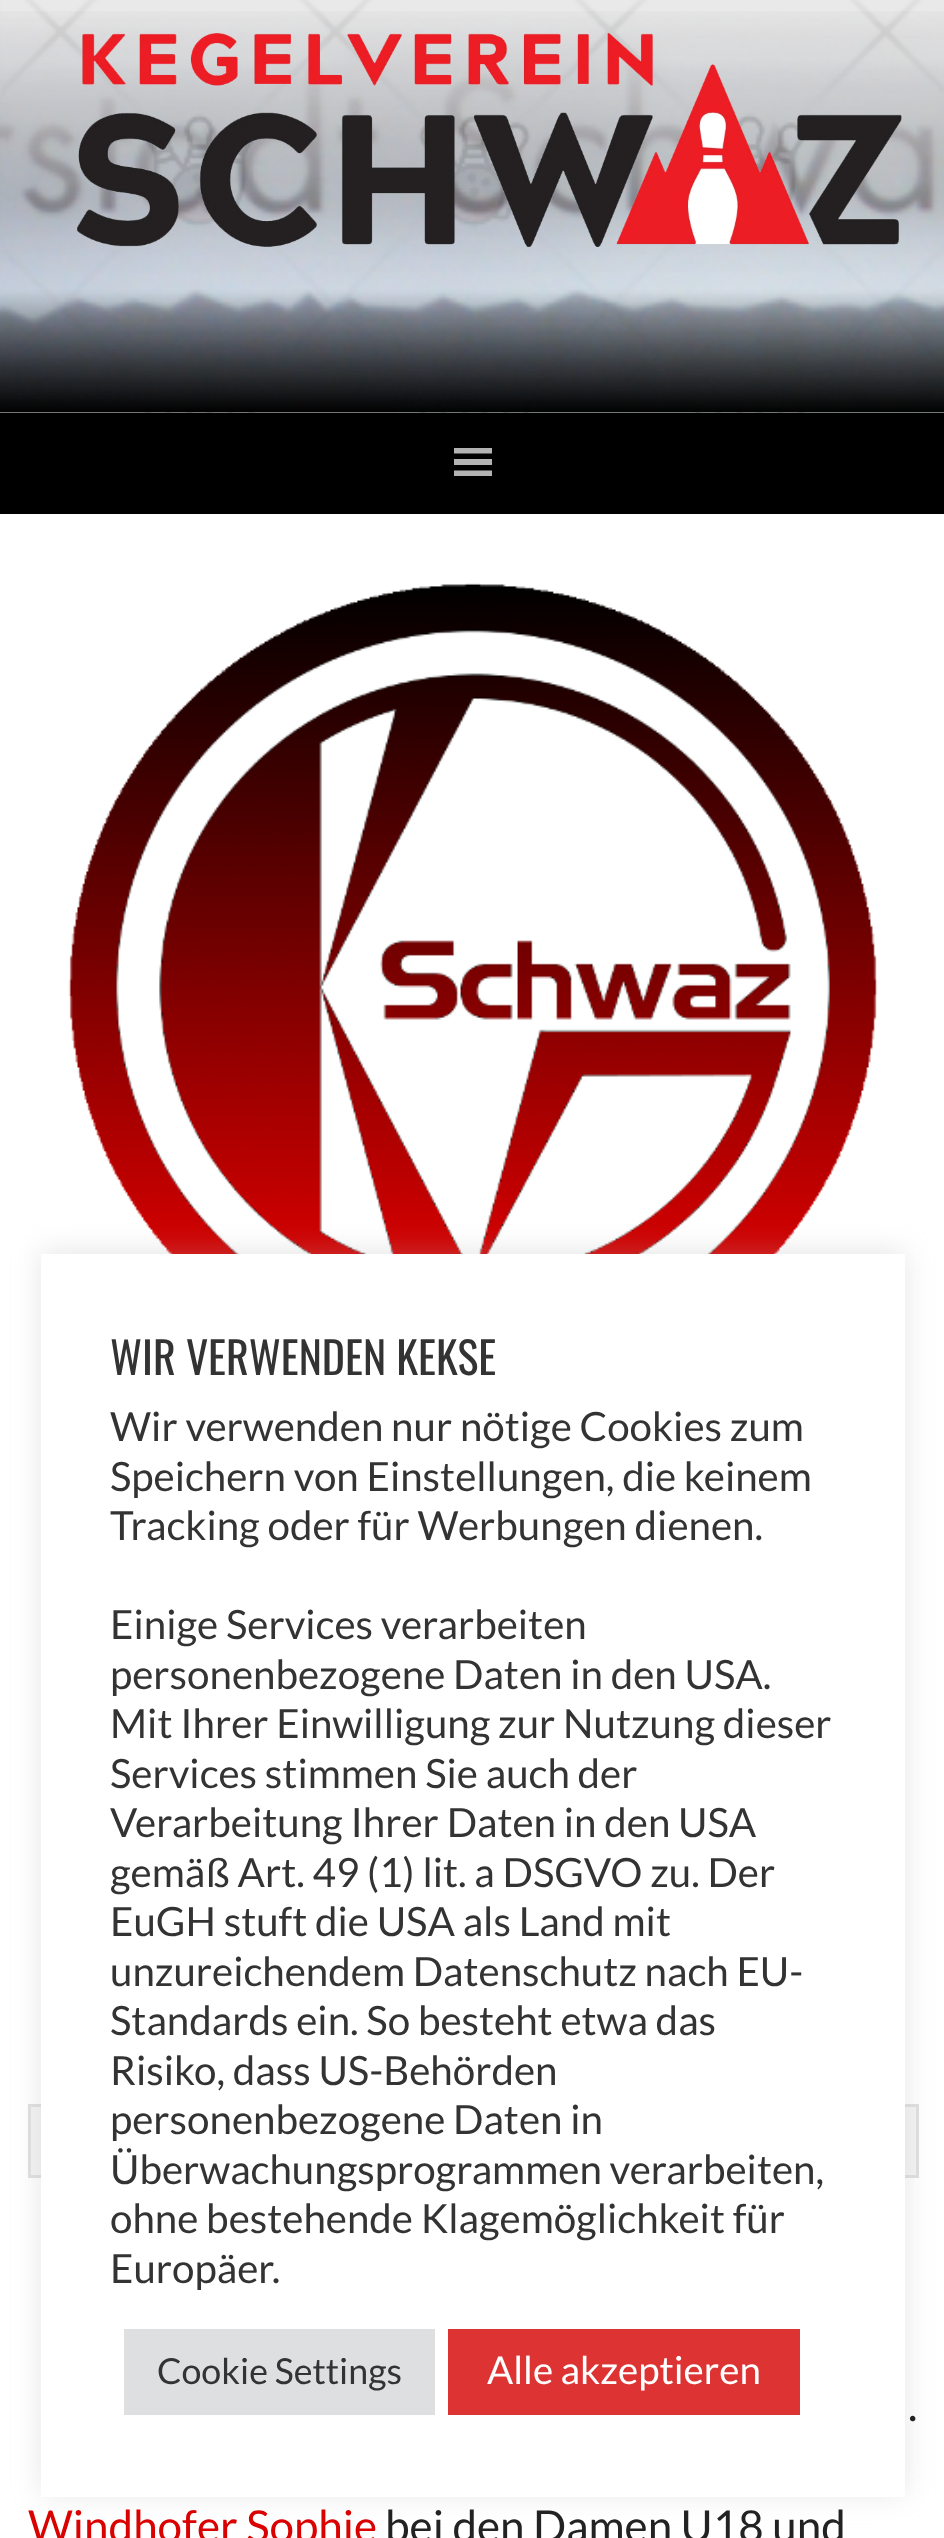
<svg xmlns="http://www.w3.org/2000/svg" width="944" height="2538">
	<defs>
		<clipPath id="clip1"><path d="M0 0H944V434H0ZM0 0H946V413H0Z" clip-rule="evenodd" /></clipPath>
	</defs>
	<rect width="100%" height="100%" fill="#E8E8E8" />
	<image x="2" y="0" width="942" height="413" href="assets/img1.png" />
	<rect x="0" y="514" width="944" height="2024" fill="#FFFFFF" />
	<image x="68" y="583" width="810" height="671" href="assets/img4.png" />
	<rect x="31" y="2107" width="10" height="68" fill="#F4F4F4" />
	<rect x="29.5" y="2105.5" width="225" height="71" fill="none" stroke="#E0E0E0" stroke-width="3" />
	<rect x="905" y="2107" width="11" height="68" fill="#F4F4F4" />
	<rect x="471.5" y="2105.5" width="446" height="71" fill="none" stroke="#E0E0E0" stroke-width="3" />
	<rect x="41" y="1251" width="864" height="1243" fill="#ACABAB" fill-opacity="0.3" filter="blur(14px)" />
	<rect x="41" y="1254" width="864" height="1243" fill="#FFFFFF" />
	<text x="110" y="1375" font-family="Oswald" font-size="44" fill="#333333">WIR VERWENDEN KEKSE</text>
	<g font-family="Lato" font-size="40.3" fill="#333333">
		<text x="110" y="1441">Wir verwenden nur nötige Cookies zum</text>
		<text x="110" y="1491">Speichern von Einstellungen, die keinem</text>
		<text x="110" y="1540">Tracking oder für Werbungen dienen.</text>
		<text x="110" y="1639">Einige Services verarbeiten</text>
		<text x="110" y="1689">personenbezogene Daten in den USA.</text>
		<text x="110" y="1738">Mit Ihrer Einwilligung zur Nutzung dieser</text>
		<text x="110" y="1788">Services stimmen Sie auch der</text>
		<text x="110" y="1837">Verarbeitung Ihrer Daten in den USA</text>
		<text x="110" y="1887">gemäß Art. 49 (1) lit. a DSGVO zu. Der</text>
		<text x="110" y="1936">EuGH stuft die USA als Land mit</text>
		<text x="110" y="1986">unzureichendem Datenschutz nach EU-</text>
		<text x="110" y="2035">Standards ein. So besteht etwa das</text>
		<text x="110" y="2085">Risiko, dass US-Behörden</text>
		<text x="110" y="2134">personenbezogene Daten in</text>
		<text x="110" y="2184">Überwachungsprogrammen verarbeiten,</text>
		<text x="110" y="2233">ohne bestehende Klagemöglichkeit für</text>
		<text x="110" y="2283">Europäer.</text>
	</g>
	<rect x="124" y="2329" width="311" height="86" fill="#DEDFE0" />
	<text x="157" y="2384" font-family="Lato" font-size="35.75" fill="#333333">Cookie Settings</text>
	<rect x="448" y="2329" width="352" height="86" fill="#DD3333" />
	<text x="487" y="2384" font-family="Lato" font-size="38.5" fill="#FFFFFF">Alle akzeptieren</text>
	<image x="0" y="11" width="944" height="402" href="assets/img2.png" />
	<g clip-path="url(#clip1)">
		<rect x="0" y="8" width="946" height="413" fill="#000000" fill-opacity="0.2" filter="blur(4px)" />
	</g>
	<image x="77" y="33" width="825" height="214" href="assets/img3.png" />
	<rect x="0" y="413" width="944" height="101" fill="#000000" />
	<path d="M454 476H492V470.5H454ZM454 448V453.5H492V448ZM454 465H492V459H454Z" fill="#B3B3B3" />
	<text x="908" y="2421" font-family="Lato" font-size="44" fill="#222222">.</text>
	<text x="28" y="2542" font-family="Lato" font-size="44" fill="#DA0101">Windhofer Sophie</text>
	<text x="385" y="2542" font-family="Lato" font-size="44" fill="#222222">bei den Damen U18 und</text>
</svg>
